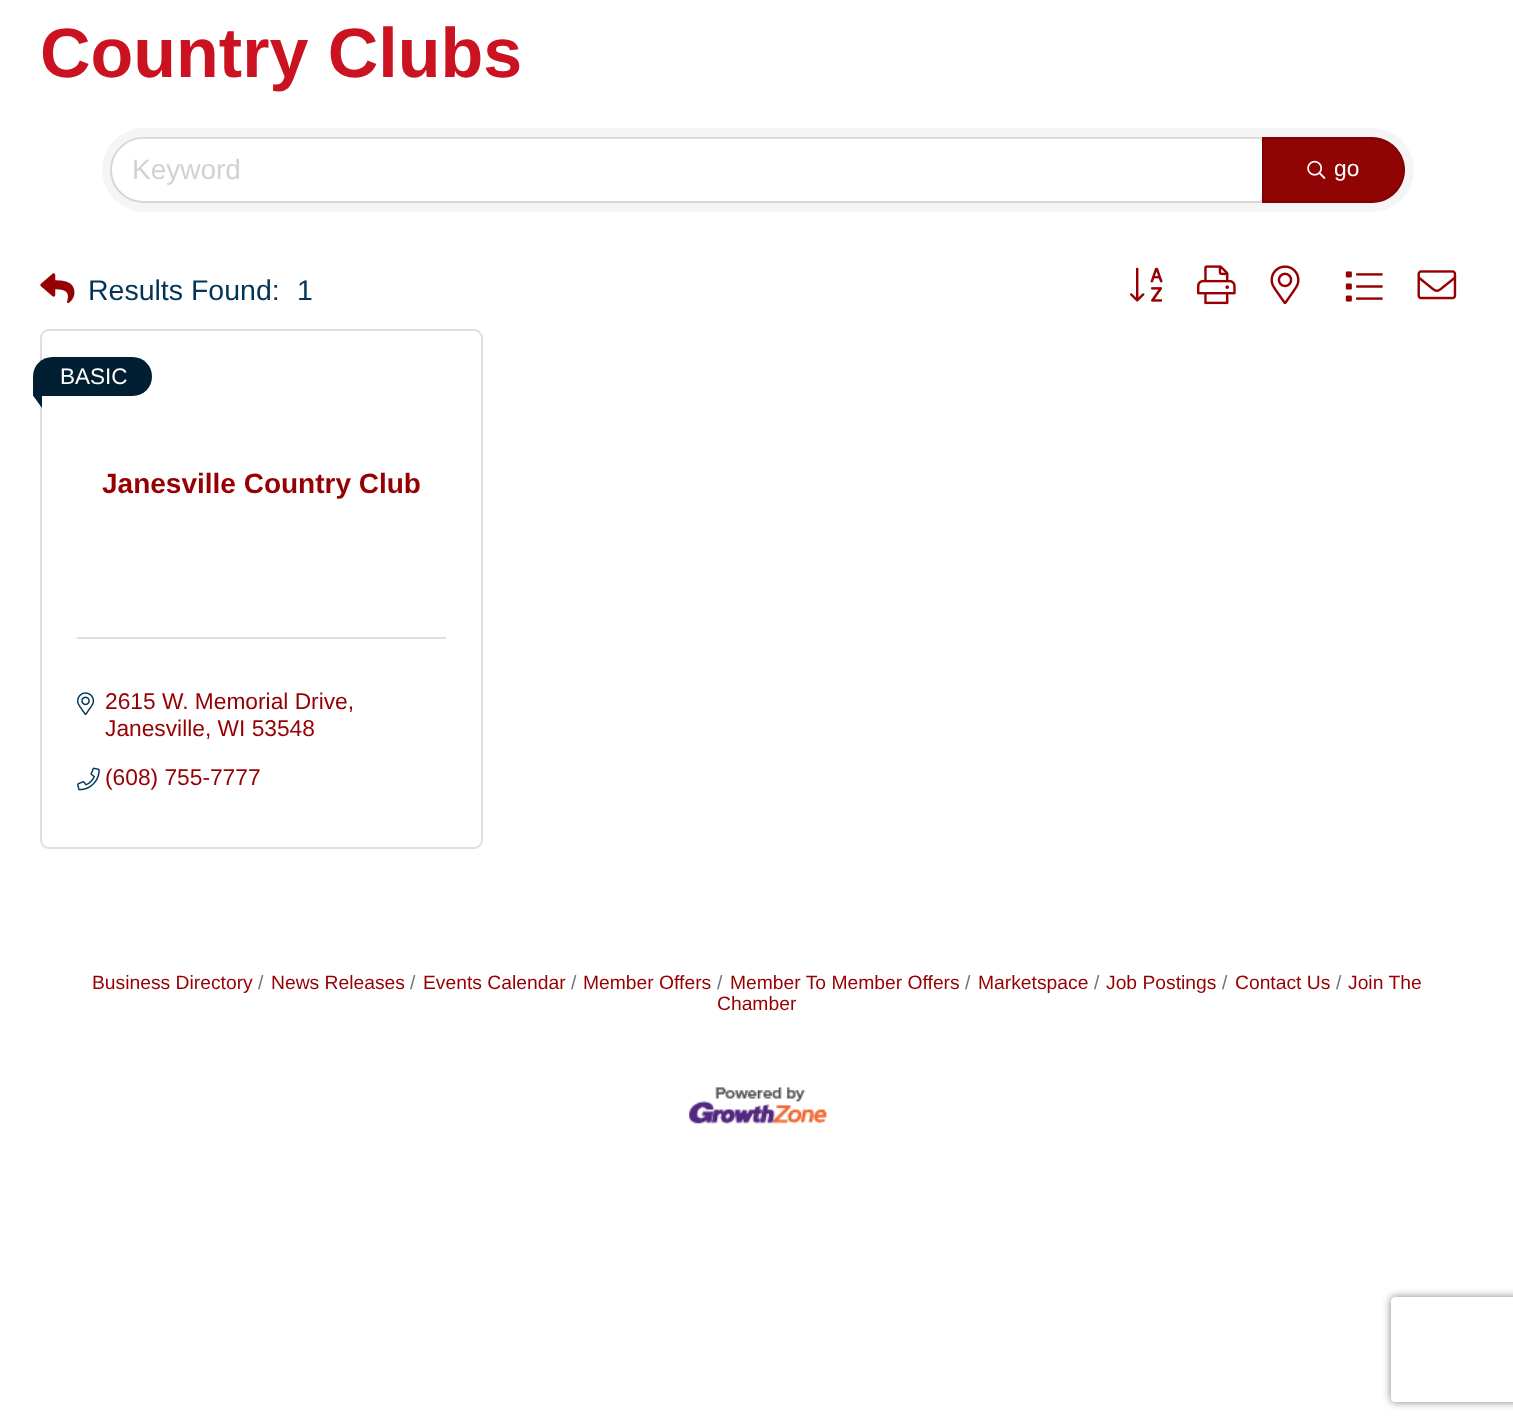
<svg xmlns="http://www.w3.org/2000/svg" width="1513" height="1426">
	<defs>
		<clipPath id="clip1"><path d="M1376 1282H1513V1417H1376ZM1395 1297H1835C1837 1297 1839 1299 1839 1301V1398C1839 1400 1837 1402 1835 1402H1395C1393 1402 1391 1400 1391 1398V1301C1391 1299 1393 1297 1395 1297Z" clip-rule="evenodd" /></clipPath>
	</defs>
	<rect width="100%" height="100%" fill="#FFFFFF" />
	<text x="40" y="77" font-family="Liberation Sans" font-size="70" font-weight="700" fill="#CB1221">Country Clubs</text>
	<rect x="102" y="128" width="1312" height="84" rx="42" fill="#F5F5F5" />
	<path d="M143.5 138H1258C1260 138 1262 140 1262 142V197C1262 199 1260 201 1258 201H143.5C126 201 112 187 112 169.5C112 152 126 138 143.5 138Z" fill="#FFFFFF" />
	<path d="M143 138H1259C1261 138 1263 140 1263 142V198C1263 200 1261 202 1259 202H143C125.5 202 111 187.5 111 170C111 152.5 125.5 138 143 138Z" fill="none" stroke="#000000" stroke-opacity="0.12" stroke-width="2" />
	<text x="132" y="179" font-family="Liberation Sans" font-size="28" fill="#D2D2D2">Keyword</text>
	<path d="M1262 137H1372C1390 137 1405 152 1405 170C1405 188 1390 203 1372 203H1262Z" fill="#900403" />
	<path d="M1263 138H1372C1389.5 138 1404 152.5 1404 170C1404 187.5 1389.5 202 1372 202H1263Z" fill="none" stroke="#000000" stroke-opacity="0.12" stroke-width="2" />
	<image x="1307" y="160" width="19" height="19" href="assets/img1.png" />
	<text x="1334" y="176" font-family="Liberation Sans" font-size="22.75" fill="#FFFFFF">go</text>
	<image x="40" y="273" width="35" height="31" href="assets/img2.png" />
	<g font-family="Liberation Sans" font-size="28.5" fill="#003458">
		<text x="88" y="300">Results Found:</text>
		<text x="297" y="300">1</text>
	</g>
	<image x="1130" y="267" width="33" height="35" href="assets/img3.png" />
	<image x="1197" y="265" width="39" height="40" href="assets/img4.png" />
	<image x="1270" y="265" width="30" height="39" href="assets/img5.png" />
	<image x="1345" y="271" width="38" height="31" href="assets/img6.png" />
	<image x="1417" y="270" width="40" height="30" href="assets/img7.png" />
	<rect x="41" y="330" width="441" height="518" rx="8" fill="none" stroke="#DFDFDF" stroke-width="2" />
	<path d="M52.5 357H132.5C143.5 357 152 365.5 152 376.5C152 387.5 143.5 396 132.5 396H34C33.5 396 33 395.5 33 395V376.5C33 365.5 41.5 357 52.5 357Z" fill="#001F33" />
	<text x="60" y="384" font-family="Liberation Sans" font-size="22.5" fill="#FFFFFF">BASIC</text>
	<path d="M42 383V408L33 395.5Z" fill="#001F33" />
	<text x="102" y="493" font-family="Liberation Sans" font-size="28" font-weight="700" fill="#960002">Janesville Country Club</text>
	<rect x="77" y="637" width="369" height="2" fill="#DFDFDF" />
	<image x="77" y="692" width="18" height="24" href="assets/img8.png" />
	<g font-family="Liberation Sans" font-size="22.75" fill="#960002">
		<text x="105" y="709">2615 W. Memorial Drive,</text>
		<text x="105" y="736">Janesville, WI 53548</text>
	</g>
	<image x="77" y="767" width="23" height="24" href="assets/img9.png" />
	<text x="105" y="785" font-family="Liberation Sans" font-size="22.75" fill="#960002">(608) 755-7777</text>
	<text x="92" y="989" font-family="Liberation Sans" font-size="19.3" fill="#960002">Business Directory</text>
	<text x="258" y="989" font-family="Liberation Sans" font-size="19.3" fill="#6C757D">/</text>
	<text x="271" y="989" font-family="Liberation Sans" font-size="19.3" fill="#960002">News Releases</text>
	<text x="410" y="989" font-family="Liberation Sans" font-size="19.3" fill="#6C757D">/</text>
	<text x="423" y="989" font-family="Liberation Sans" font-size="19.3" fill="#960002">Events Calendar</text>
	<text x="571" y="989" font-family="Liberation Sans" font-size="19.3" fill="#6C757D">/</text>
	<text x="583" y="989" font-family="Liberation Sans" font-size="19.3" fill="#960002">Member Offers</text>
	<text x="717" y="989" font-family="Liberation Sans" font-size="19.3" fill="#6C757D">/</text>
	<text x="730" y="989" font-family="Liberation Sans" font-size="19.3" fill="#960002">Member To Member Offers</text>
	<text x="1336" y="989" font-family="Liberation Sans" font-size="19.3" fill="#6C757D">/</text>
	<g font-family="Liberation Sans" font-size="19.3" fill="#960002">
		<text x="1348" y="989">Join The</text>
		<text x="717" y="1010">Chamber</text>
	</g>
	<text x="965" y="989" font-family="Liberation Sans" font-size="19.3" fill="#6C757D">/</text>
	<text x="978" y="989" font-family="Liberation Sans" font-size="19.3" fill="#960002">Marketspace</text>
	<text x="1094" y="989" font-family="Liberation Sans" font-size="19.3" fill="#6C757D">/</text>
	<text x="1106" y="989" font-family="Liberation Sans" font-size="19.3" fill="#960002">Job Postings</text>
	<text x="1222" y="989" font-family="Liberation Sans" font-size="19.3" fill="#6C757D">/</text>
	<text x="1235" y="989" font-family="Liberation Sans" font-size="19.3" fill="#960002">Contact Us</text>
	<image x="689" y="1087" width="138" height="37" href="assets/img10.png" />
	<g clip-path="url(#clip1)">
		<rect x="1391" y="1297" width="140" height="105" rx="4" fill="#808080" filter="blur(4.5px)" />
	</g>
</svg>
